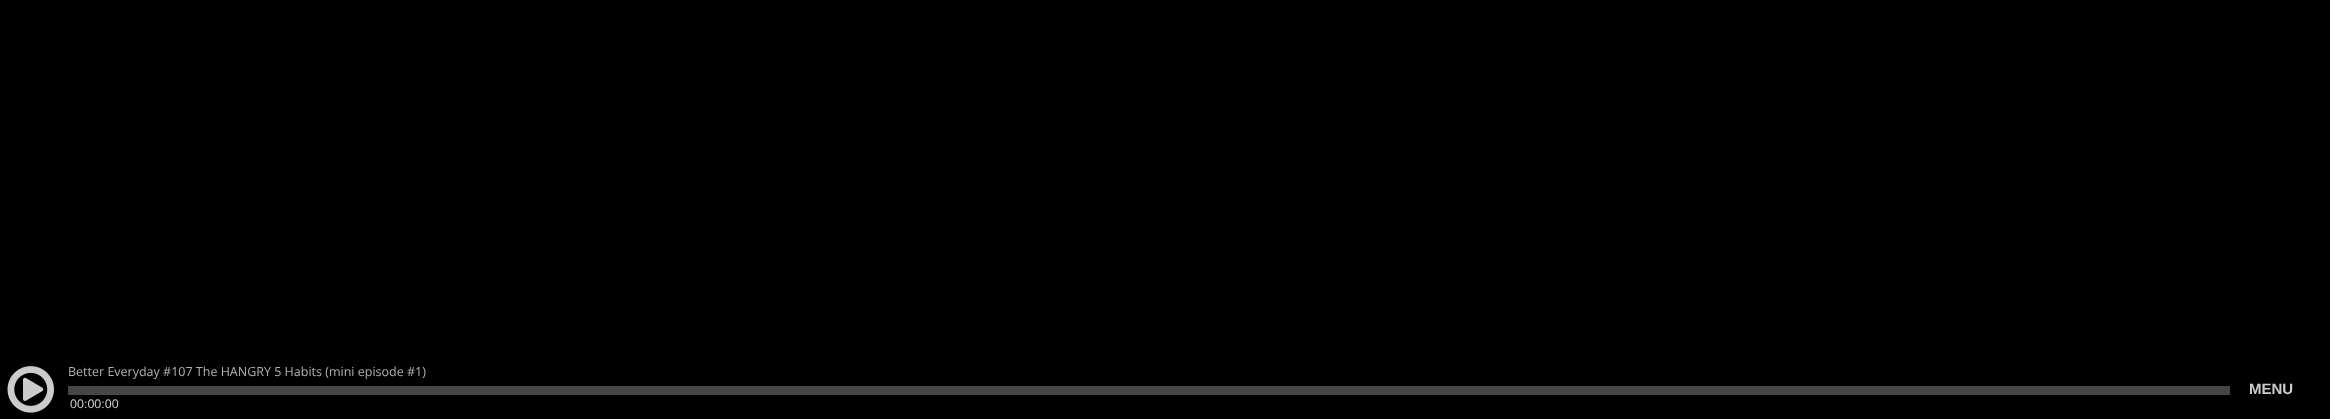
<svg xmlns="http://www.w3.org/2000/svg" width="2330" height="419">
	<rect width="100%" height="100%" fill="#000000" />
	<image x="7" y="366" width="47" height="47" href="assets/img1.png" />
	<text x="68" y="376" font-family="Open Sans" font-size="12.5" fill="#B0B0B0">Better Everyday #107 The HANGRY 5 Habits (mini episode #1)</text>
	<rect x="68" y="386" width="2162" height="9" fill="#464646" />
	<text x="70" y="408" font-family="Liberation Sans" font-size="12.5" fill="#CCCCCC">00:00:00</text>
	<text x="2249" y="394" font-family="Liberation Sans" font-size="15" font-weight="700" fill="#CCCCCC">MENU</text>
</svg>
